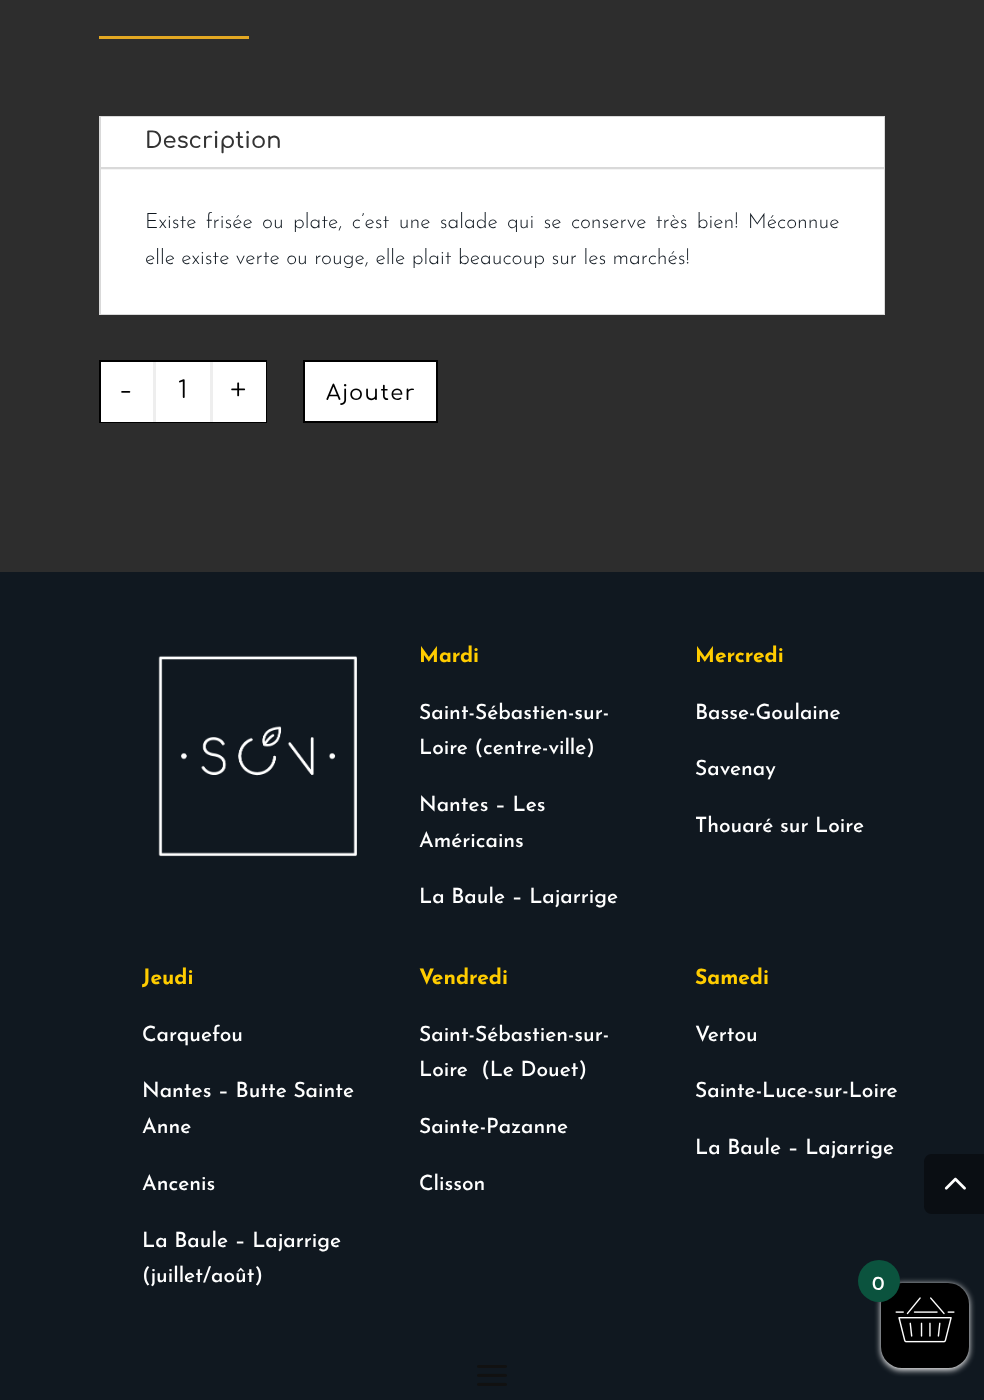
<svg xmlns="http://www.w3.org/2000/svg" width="984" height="1400">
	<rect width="100%" height="100%" fill="#2D2D2D" />
	<rect x="99" y="36" width="150" height="3" fill="#E3A822" />
	<rect x="100" y="117" width="784" height="197" fill="none" stroke="#D9D9D9" stroke-width="2" />
	<rect x="101" y="169" width="783" height="1" fill="#F4F4F4" />
	<rect x="101" y="117" width="783" height="50" fill="#FFFFFF" />
	<rect x="101" y="167" width="783" height="2" fill="#D9D9D9" />
	<text x="145" y="148" font-family="Comfortaa" font-size="22.5" font-weight="600" fill="#333333">Description</text>
	<rect x="101" y="170" width="783" height="144" fill="#FFFFFF" />
	<g font-family="Josefin Sans" font-size="21" font-weight="300" fill="#101820">
		<text x="145" y="228" word-spacing="2.9">Existe frisée ou plate, c’est une salade qui se conserve très bien! Méconnue</text>
		<text x="145" y="264">elle existe verte ou rouge, elle plait beaucoup sur les marchés!</text>
	</g>
	<rect x="100" y="361" width="166" height="61" fill="none" stroke="#000000" stroke-width="2" />
	<rect x="101" y="362" width="52" height="60" fill="#FFFFFF" />
	<text x="120" y="400" font-family="Comfortaa" font-size="30" font-weight="300" fill="#000000">-</text>
	<rect x="156" y="362" width="54" height="60" fill="#FFFFFF" />
	<rect x="210" y="362" width="3" height="60" fill="#EEEEEE" />
	<rect x="153" y="362" width="3" height="60" fill="#EEEEEE" />
	<text x="178" y="398" font-family="Comfortaa" font-size="24" fill="#000000">1</text>
	<rect x="213" y="362" width="53" height="60" fill="#FFFFFF" />
	<text x="230" y="400" font-family="Comfortaa" font-size="30" font-weight="300" fill="#000000">+</text>
	<rect x="304" y="361" width="133" height="61" fill="#FFFFFF" stroke="#000000" stroke-width="2" />
	<text x="326" y="400" font-family="Comfortaa" font-size="21" font-weight="500" letter-spacing="1.5" fill="#000000">Ajouter</text>
	<rect x="0" y="572" width="984" height="828" fill="#101820" />
	<image x="158" y="655" width="199" height="202" href="assets/img1.png" />
	<text x="419" y="662" font-family="Josefin Sans" font-size="21" font-weight="700" fill="#FFCC00">Mardi</text>
	<g font-family="Josefin Sans" font-size="21" font-weight="500" fill="#FFFFFF">
		<text x="419" y="719">Saint-Sébastien-sur-</text>
		<text x="419" y="754">Loire (centre-ville)</text>
		<text x="419" y="811">Nantes – Les</text>
		<text x="419" y="847">Américains</text>
		<text x="419" y="903">La Baule – Lajarrige</text>
	</g>
	<text x="695" y="662" font-family="Josefin Sans" font-size="21" font-weight="700" fill="#FFCC00">Mercredi</text>
	<g font-family="Josefin Sans" font-size="21" font-weight="500" fill="#FFFFFF">
		<text x="695" y="719">Basse-Goulaine</text>
		<text x="695" y="775">Savenay</text>
		<text x="695" y="832">Thouaré sur Loire</text>
	</g>
	<text x="142" y="984" font-family="Josefin Sans" font-size="21" font-weight="700" fill="#FFCC00">Jeudi</text>
	<g font-family="Josefin Sans" font-size="21" font-weight="500" fill="#FFFFFF">
		<text x="142" y="1041">Carquefou</text>
		<text x="142" y="1097">Nantes – Butte Sainte</text>
		<text x="142" y="1133">Anne</text>
		<text x="142" y="1190">Ancenis</text>
		<text x="142" y="1247">La Baule – Lajarrige</text>
		<text x="142" y="1282">(juillet/août)</text>
	</g>
	<text x="419" y="984" font-family="Josefin Sans" font-size="21" font-weight="700" fill="#FFCC00">Vendredi</text>
	<g font-family="Josefin Sans" font-size="21" font-weight="500" fill="#FFFFFF">
		<text x="419" y="1041">Saint-Sébastien-sur-</text>
		<text x="419" y="1076" xml:space="preserve">Loire  (Le Douet)</text>
		<text x="419" y="1133">Sainte-Pazanne</text>
		<text x="419" y="1190">Clisson</text>
	</g>
	<text x="695" y="984" font-family="Josefin Sans" font-size="21" font-weight="700" fill="#FFCC00">Samedi</text>
	<g font-family="Josefin Sans" font-size="21" font-weight="500" fill="#FFFFFF">
		<text x="695" y="1041">Vertou</text>
		<text x="695" y="1097">Sainte-Luce-sur-Loire</text>
		<text x="695" y="1154">La Baule – Lajarrige</text>
	</g>
	<image x="477" y="1365" width="30" height="21" href="assets/img2.png" />
	<path d="M932 1154H984V1214H932C927.5 1214 924 1210.5 924 1206V1162C924 1157.5 927.5 1154 932 1154Z" fill="#0A0E13" />
	<image x="944" y="1177" width="22" height="13" href="assets/img3.png" />
	<rect x="881" y="1284" width="88" height="86" rx="21" fill="#FFFFFF" filter="blur(3px)" />
	<rect x="881" y="1283" width="88" height="85" rx="21" fill="#000000" />
	<image x="895" y="1297" width="60" height="46" href="assets/img4.png" />
	<circle cx="879" cy="1281" r="21" fill="#0B533E" />
	<text x="872" y="1290" font-family="Josefin Sans" font-size="20" font-weight="500" fill="#FFFFFF">0</text>
</svg>
